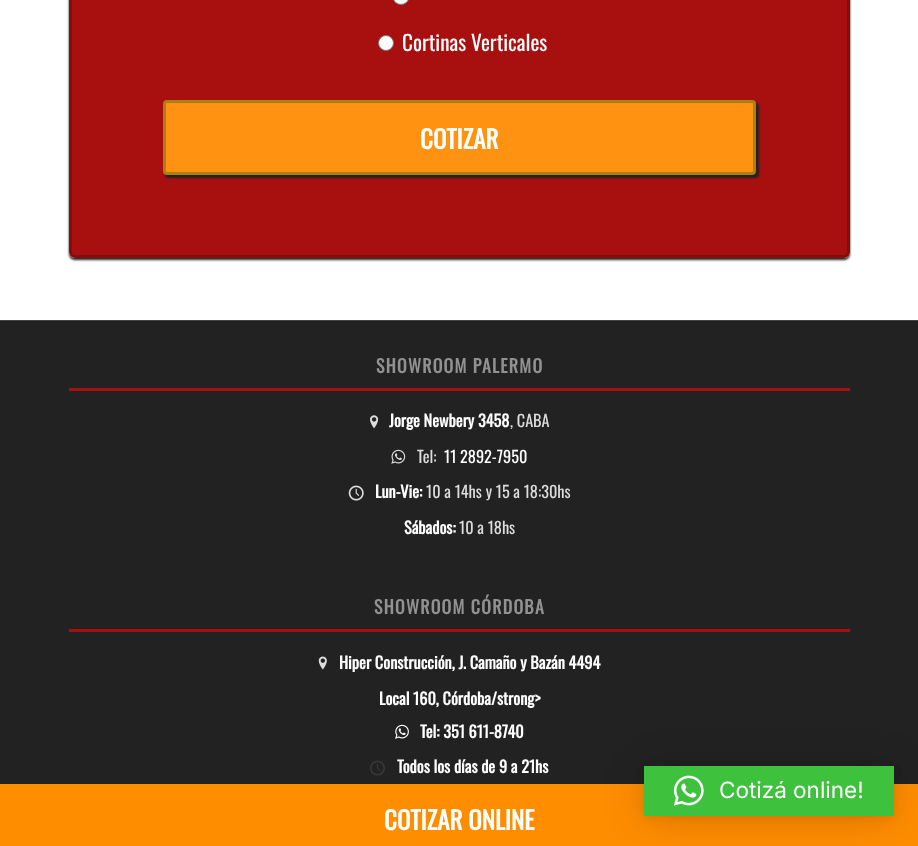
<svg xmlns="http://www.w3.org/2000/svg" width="918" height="846">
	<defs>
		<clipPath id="clip1"><path d="M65 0H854V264H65ZM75-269H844C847.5-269 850-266.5 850-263V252C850 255.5 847.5 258 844 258H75C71.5 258 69 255.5 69 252V-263C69-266.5 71.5-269 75-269Z" clip-rule="evenodd" /></clipPath>
	</defs>
	<rect width="100%" height="100%" fill="#FFFFFF" />
	<g clip-path="url(#clip1)">
		<rect x="69" y="-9" width="781" height="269" rx="6" fill="#222222" filter="blur(1px)" />
	</g>
	<rect x="70.5" y="-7.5" width="778" height="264" rx="4.5" fill="#A81010" stroke="#820D0D" stroke-width="3" />
	<rect x="393.5" y="-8.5" width="15" height="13" rx="7.5" fill="#FFFFFF" stroke="#767676" />
	<circle cx="386" cy="43" r="7.5" fill="#FFFFFF" stroke="#767676" />
	<text x="402" y="51" font-family="Oswald" font-size="21.25" fill="#FFFFFF">Cortinas Verticales</text>
	<rect x="165" y="103" width="594" height="75" rx="4" fill="#222222" filter="blur(1px)" />
	<rect x="164.5" y="101.5" width="590" height="72" rx="2.5" fill="#FF9210" stroke="#AB8116" stroke-width="3" />
	<text x="420" y="149" font-family="Oswald" font-size="25" font-weight="700" fill="#FFFFFF">COTIZAR</text>
	<rect x="0" y="321" width="918" height="463" fill="#222222" />
	<rect x="0" y="320" width="918" height="1" fill="#444444" />
	<rect x="69" y="388" width="781" height="3" fill="#A81010" />
	<text x="376" y="373" font-family="Oswald" font-size="17.9" font-weight="700" letter-spacing="1.25" fill="#919191">SHOWROOM PALERMO</text>
	<image x="370" y="415" width="9" height="14" href="assets/img1.png" />
	<text x="389" y="427" font-family="Oswald" font-size="16.25" font-weight="700" fill="#FFFFFF">Jorge Newbery 3458</text>
	<text x="510" y="427" font-family="Oswald" font-size="16.25" fill="#DDDDDD">, CABA</text>
	<image x="391" y="449" width="15" height="15" href="assets/img2.png" />
	<text x="417" y="463" font-family="Oswald" font-size="16.25" fill="#DDDDDD">Tel:</text>
	<text x="444" y="463" font-family="Oswald" font-size="16.25" fill="#FFFFFF">11 2892-7950</text>
	<image x="348" y="485" width="16" height="16" href="assets/img3.png" />
	<text x="375" y="498" font-family="Oswald" font-size="16.25" font-weight="700" fill="#FFFFFF">Lun-Vie:</text>
	<text x="426" y="498" font-family="Oswald" font-size="16.25" fill="#DDDDDD">10 a 14hs y 15 a 18:30hs</text>
	<text x="404" y="534" font-family="Oswald" font-size="16.25" font-weight="700" fill="#FFFFFF">Sábados:</text>
	<text x="459" y="534" font-family="Oswald" font-size="16.25" fill="#DDDDDD">10 a 18hs</text>
	<rect x="69" y="629" width="781" height="3" fill="#A81010" />
	<text x="374" y="614" font-family="Oswald" font-size="17.9" font-weight="700" letter-spacing="1.25" fill="#919191">SHOWROOM CÓRDOBA</text>
	<image x="318" y="656" width="9" height="14" href="assets/img4.png" />
	<g font-family="Oswald" font-size="16.25" font-weight="700" fill="#FFFFFF">
		<text x="339" y="669">Hiper Construcción, J. Camaño y Bazán 4494</text>
		<text x="379" y="705">Local 160, Córdoba/strong&gt;</text>
	</g>
	<image x="395" y="724" width="14" height="15" href="assets/img5.png" />
	<text x="420" y="738" font-family="Oswald" font-size="16.25" font-weight="700" fill="#FFFFFF">Tel: 351 611-8740</text>
	<image x="370" y="760" width="15" height="16" href="assets/img6.png" />
	<text x="397" y="773" font-family="Oswald" font-size="16.25" font-weight="700" fill="#FFFFFF">Todos los días de 9 a 21hs</text>
	<rect x="0" y="784" width="918" height="62" fill="#FF8D00" />
	<text x="384" y="830" font-family="Oswald" font-size="25" font-weight="700" fill="#FFFFFF">COTIZAR ONLINE</text>
	<rect x="644" y="769" width="250" height="50" fill="#000000" fill-opacity="0.16" filter="blur(20px)" />
	<rect x="644" y="768" width="250" height="50" fill="#000000" fill-opacity="0.06" filter="blur(4px)" />
	<rect x="644" y="766" width="250" height="50" fill="#3EC13C" />
	<image x="673" y="775" width="31" height="31" href="assets/img7.png" />
	<text x="719" y="798" font-family="Inter" font-size="22.5" fill="#FFFFFF">Cotizá online!</text>
</svg>
